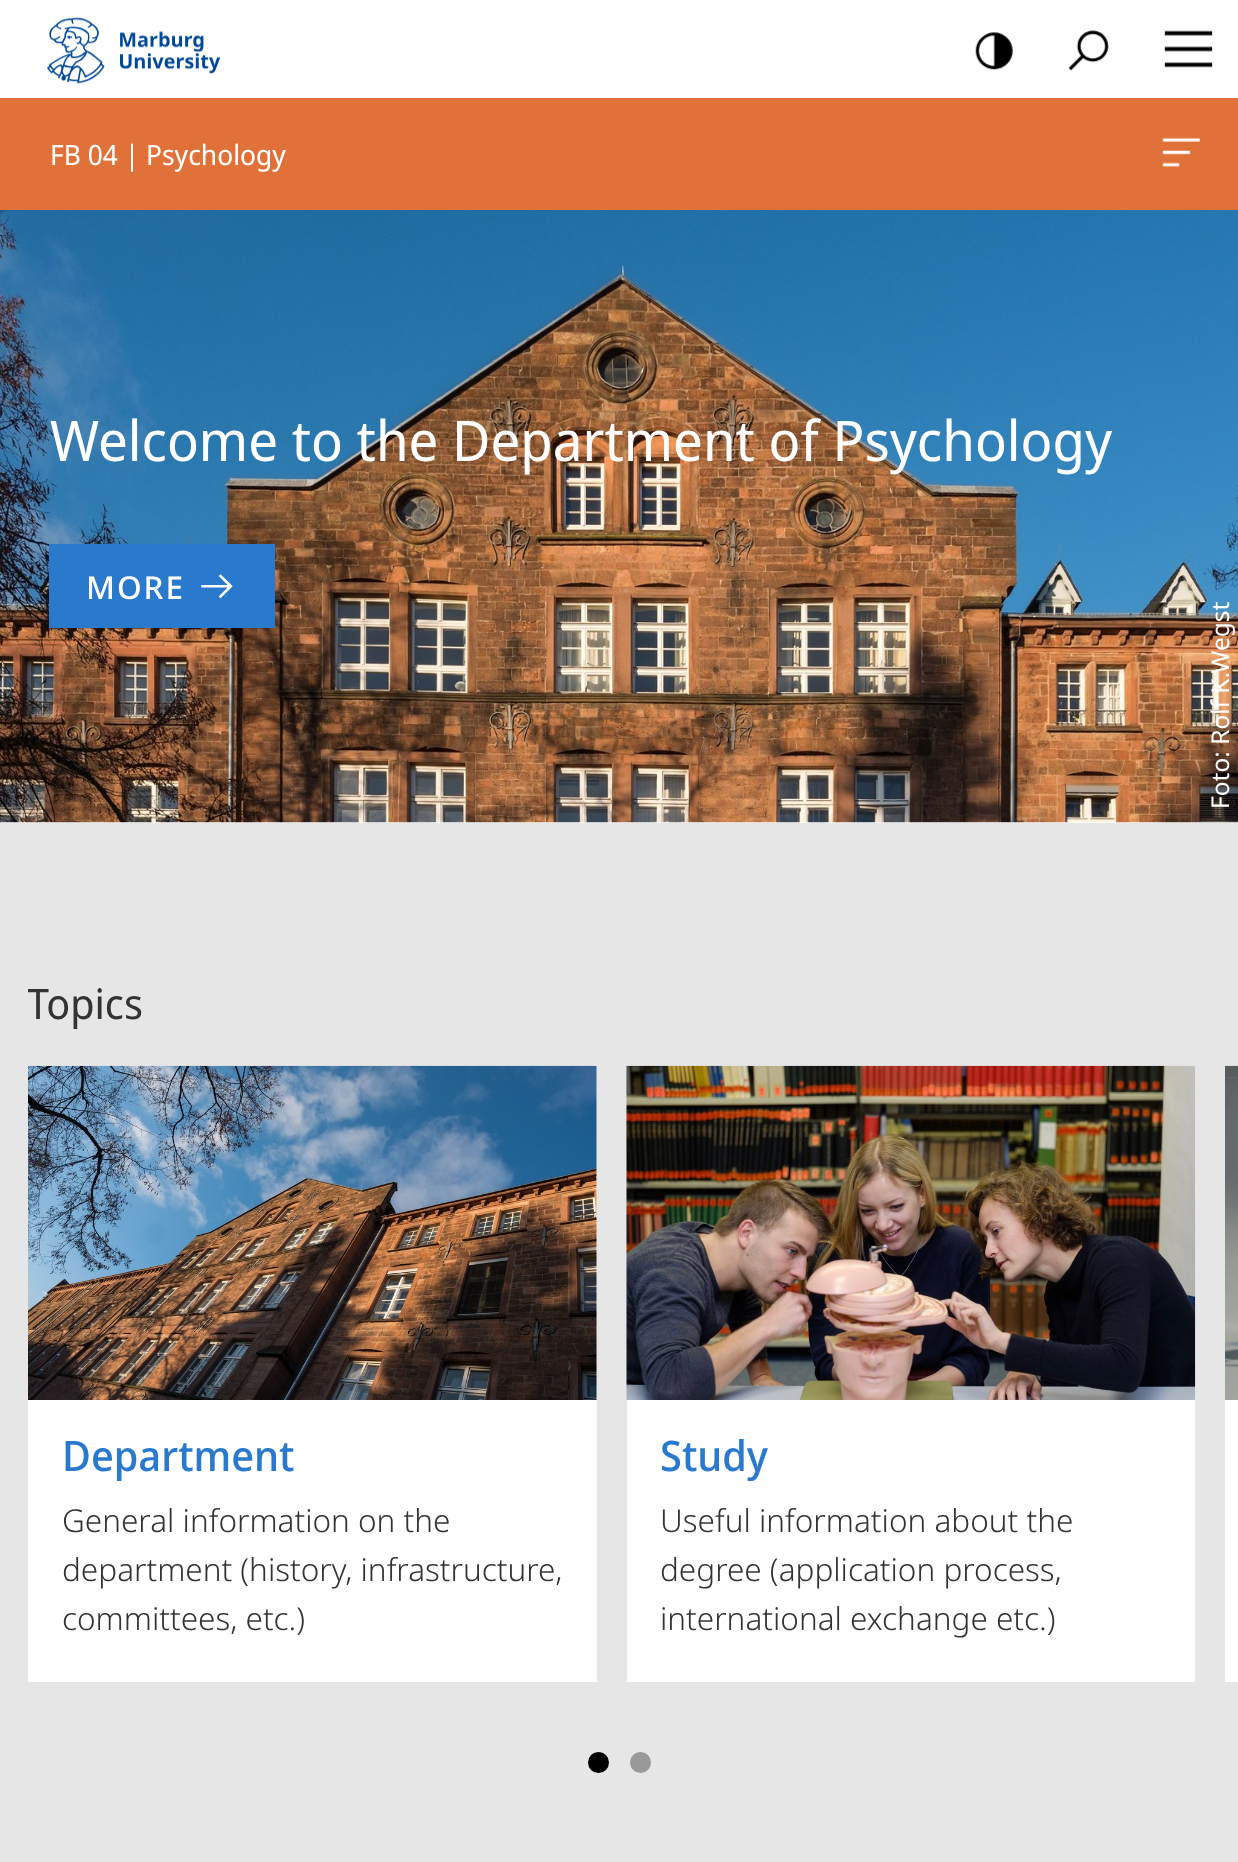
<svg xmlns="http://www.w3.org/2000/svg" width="1238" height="1862">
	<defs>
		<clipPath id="clip1"><rect x="28" y="945" width="1033" height="93" /></clipPath>
	</defs>
	<rect width="100%" height="100%" fill="#FFFFFF" />
	<image x="47" y="17" width="174" height="67" href="assets/img1.png" />
	<image x="975" y="32" width="38" height="38" href="assets/img2.png" />
	<image x="1068" y="30" width="41" height="41" href="assets/img3.png" />
	<image x="1164" y="30" width="49" height="38" href="assets/img4.png" />
	<rect x="0" y="98" width="1238" height="112" fill="#E07239" />
	<text x="50" y="165" font-family="Noto Sans Display" font-size="28" fill="#FFFFFF">FB 04 | Psychology</text>
	<image x="1162" y="137" width="39" height="30" href="assets/img5.png" />
	<image x="0" y="210" width="1238" height="613" href="assets/img7.png" />
	<text x="50" y="461" font-family="Noto Sans Display" font-size="56" fill="#FFFFFF">Welcome to the Department of Psychology</text>
	<rect x="49" y="544" width="226" height="84" fill="#297ACC" />
	<text x="86" y="599" font-family="Noto Sans" font-size="31.5" font-weight="500" letter-spacing="2" fill="#FFFFFF">MORE</text>
	<image x="201" y="574" width="32" height="25" href="assets/img6.png" />
	<text x="1229" y="809" transform="rotate(-90 1229 809)" font-family="Noto Sans" font-size="24.5" fill="#FFFFFF">Foto: Rolf K.Wegst</text>
	<rect x="0" y="823" width="1238" height="1039" fill="#E6E6E6" />
	<g clip-path="url(#clip1)">
		<text x="27" y="1019" font-family="Noto Sans Display" font-size="42" fill="#333333">Topics</text>
	</g>
	<rect x="28" y="1066" width="569" height="616" fill="#FFFFFF" />
	<image x="28" y="1065" width="569" height="335" href="assets/img8.png" />
	<text x="62" y="1471" font-family="Noto Sans Display" font-size="42" font-weight="500" fill="#297ACC">Department</text>
	<g font-family="Noto Sans" font-size="31.5" font-weight="300" fill="#333333">
		<text x="62" y="1532">General information on the</text>
		<text x="62" y="1581">department (history, infrastructure,</text>
		<text x="62" y="1630">committees, etc.)</text>
	</g>
	<rect x="627" y="1400" width="568" height="282" fill="#FFFFFF" />
	<image x="626" y="1065" width="570" height="335" href="assets/img9.png" />
	<text x="660" y="1471" font-family="Noto Sans Display" font-size="42" font-weight="500" fill="#297ACC">Study</text>
	<g font-family="Noto Sans" font-size="31.5" font-weight="300" fill="#333333">
		<text x="660" y="1532">Useful information about the</text>
		<text x="660" y="1581">degree (application process,</text>
		<text x="660" y="1630">international exchange etc.)</text>
	</g>
	<rect x="1225" y="1400" width="13" height="282" fill="#FFFFFF" />
	<image x="1225" y="1065" width="13" height="335" href="assets/img10.png" />
	<circle cx="598.5" cy="1762.5" r="10.5" fill="#000000" />
	<circle cx="640.5" cy="1762.5" r="10.5" fill="#999999" />
</svg>
